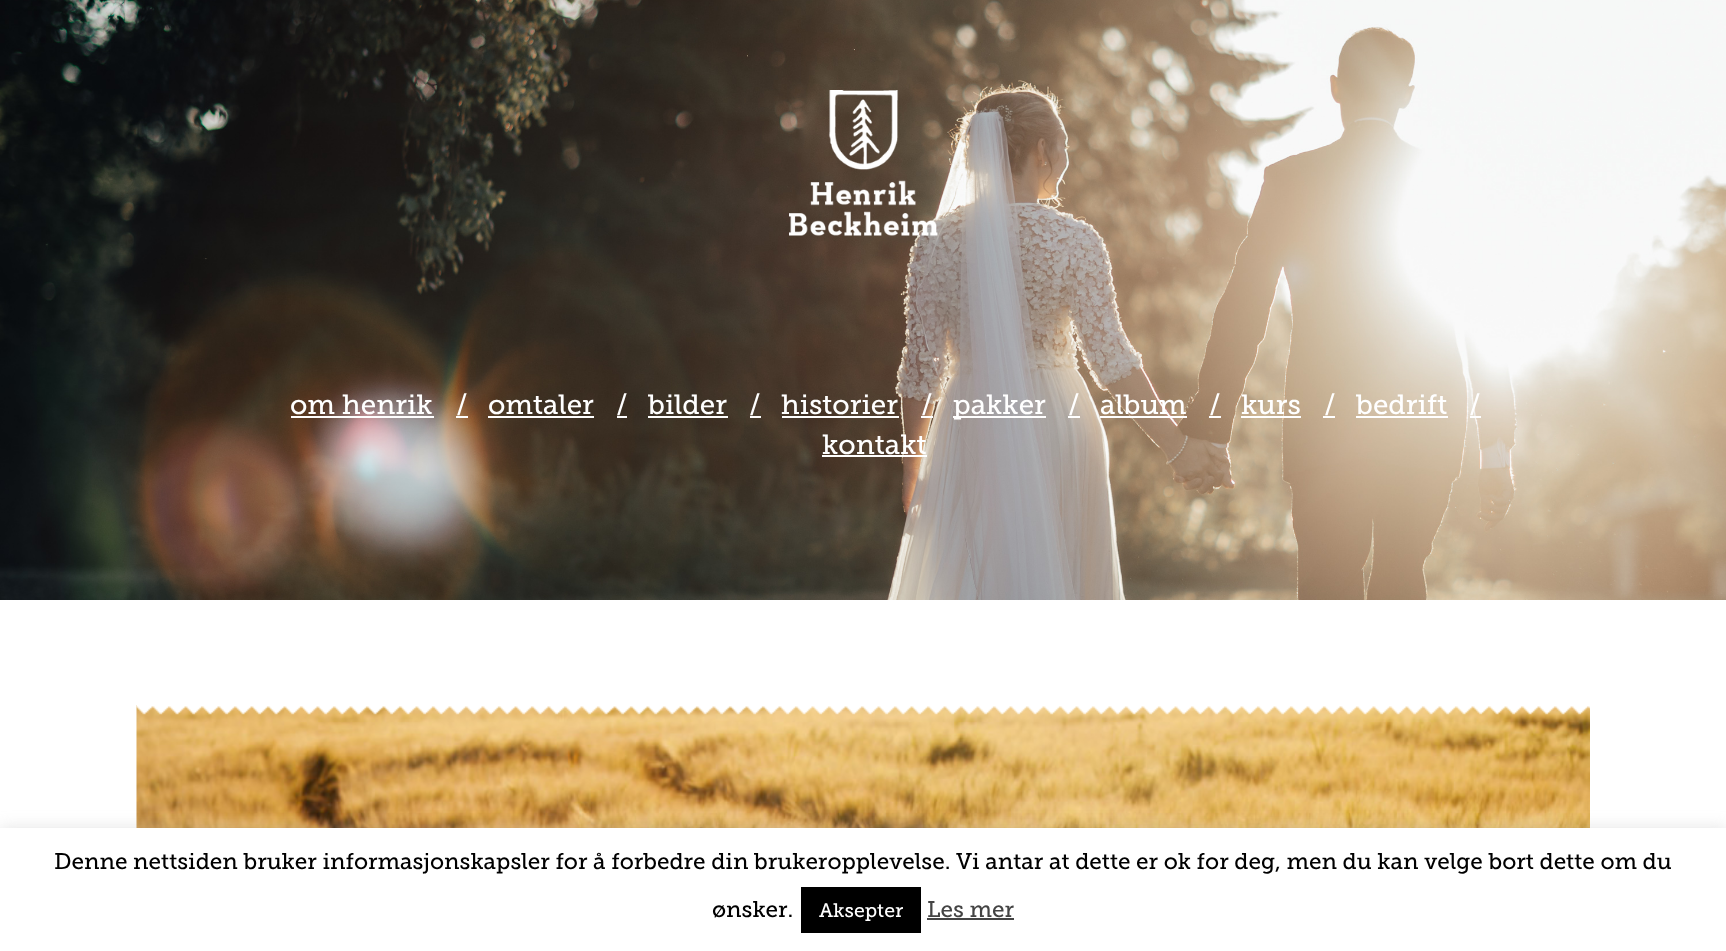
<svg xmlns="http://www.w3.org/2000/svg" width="1726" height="951">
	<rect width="100%" height="100%" fill="#FFFFFF" />
	<image x="0" y="0" width="1726" height="600" href="assets/img1.png" />
	<image x="789" y="90" width="149" height="146" href="assets/img2.png" />
	<text x="290" y="414" font-family="Museo Slab" font-size="27.75" fill="#FFFFFF">om henrik</text>
	<rect x="291" y="416" width="143" height="2" fill="#FFFFFF" />
	<text x="456" y="414" font-family="Museo Slab" font-size="27.75" fill="#FFFFFF">/</text>
	<rect x="456" y="416" width="12" height="2" fill="#FFFFFF" />
	<text x="488" y="414" font-family="Museo Slab" font-size="27.75" fill="#FFFFFF">omtaler</text>
	<rect x="488" y="416" width="106" height="2" fill="#FFFFFF" />
	<text x="616" y="414" font-family="Museo Slab" font-size="27.75" fill="#FFFFFF">/</text>
	<rect x="617" y="416" width="10" height="2" fill="#FFFFFF" />
	<text x="648" y="414" font-family="Museo Slab" font-size="27.75" fill="#FFFFFF">bilder</text>
	<rect x="648" y="416" width="80" height="2" fill="#FFFFFF" />
	<text x="749" y="414" font-family="Museo Slab" font-size="27.75" fill="#FFFFFF">/</text>
	<rect x="750" y="416" width="11" height="2" fill="#FFFFFF" />
	<text x="781" y="414" font-family="Museo Slab" font-size="27.75" fill="#FFFFFF">historier</text>
	<rect x="782" y="416" width="117" height="2" fill="#FFFFFF" />
	<text x="921" y="414" font-family="Museo Slab" font-size="27.75" fill="#FFFFFF">/</text>
	<rect x="921" y="416" width="12" height="2" fill="#FFFFFF" />
	<rect x="953" y="416" width="93" height="2" fill="#FFFFFF" />
	<g font-family="Museo Slab" font-size="27.75" fill="#FFFFFF">
		<text x="953" y="414">pakker</text>
		<text x="1068" y="414">/</text>
	</g>
	<rect x="1068" y="416" width="12" height="2" fill="#FFFFFF" />
	<text x="1100" y="414" font-family="Museo Slab" font-size="27.75" fill="#FFFFFF">album</text>
	<rect x="1100" y="416" width="87" height="2" fill="#FFFFFF" />
	<text x="1209" y="414" font-family="Museo Slab" font-size="27.75" fill="#FFFFFF">/</text>
	<rect x="1209" y="416" width="12" height="2" fill="#FFFFFF" />
	<text x="1241" y="414" font-family="Museo Slab" font-size="27.75" fill="#FFFFFF">kurs</text>
	<rect x="1241" y="416" width="60" height="2" fill="#FFFFFF" />
	<text x="1324" y="414" font-family="Museo Slab" font-size="27.75" fill="#FFFFFF">/</text>
	<rect x="1323" y="416" width="12" height="2" fill="#FFFFFF" />
	<text x="1356" y="414" font-family="Museo Slab" font-size="27.75" fill="#FFFFFF">bedrift</text>
	<rect x="1356" y="416" width="92" height="2" fill="#FFFFFF" />
	<text x="1469" y="414" font-family="Museo Slab" font-size="27.75" fill="#FFFFFF">/</text>
	<rect x="1470" y="416" width="11" height="2" fill="#FFFFFF" />
	<text x="822" y="454" font-family="Museo Slab" font-size="27.75" fill="#FFFFFF">kontakt</text>
	<rect x="822" y="455" width="105" height="2" fill="#FFFFFF" />
	<image x="136" y="705" width="1454" height="123" href="assets/img3.png" />
	<image x="136" y="705" width="1454" height="10" href="assets/img4.png" />
	<rect x="0" y="827" width="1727" height="123" fill="#ACABAB" fill-opacity="0.3" filter="blur(7.5px)" />
	<rect x="0" y="828" width="1726" height="123" fill="#FFFFFF" />
	<g font-family="Museo Slab" font-size="22.5" fill="#000000">
		<text x="54" y="869">Denne nettsiden bruker informasjonskapsler for å forbedre din brukeropplevelse. Vi antar at dette er ok for deg, men du kan velge bort dette om du</text>
		<text x="712" y="917">ønsker.</text>
	</g>
	<rect x="801" y="887" width="120" height="46" fill="#000000" />
	<text x="819" y="917" font-family="Museo Slab" font-size="19.5" fill="#FFFFFF">Aksepter</text>
	<text x="927" y="917" font-family="Museo Slab" font-size="22.5" fill="#444444">Les mer</text>
	<rect x="927" y="918" width="87" height="2" fill="#444444" />
</svg>
